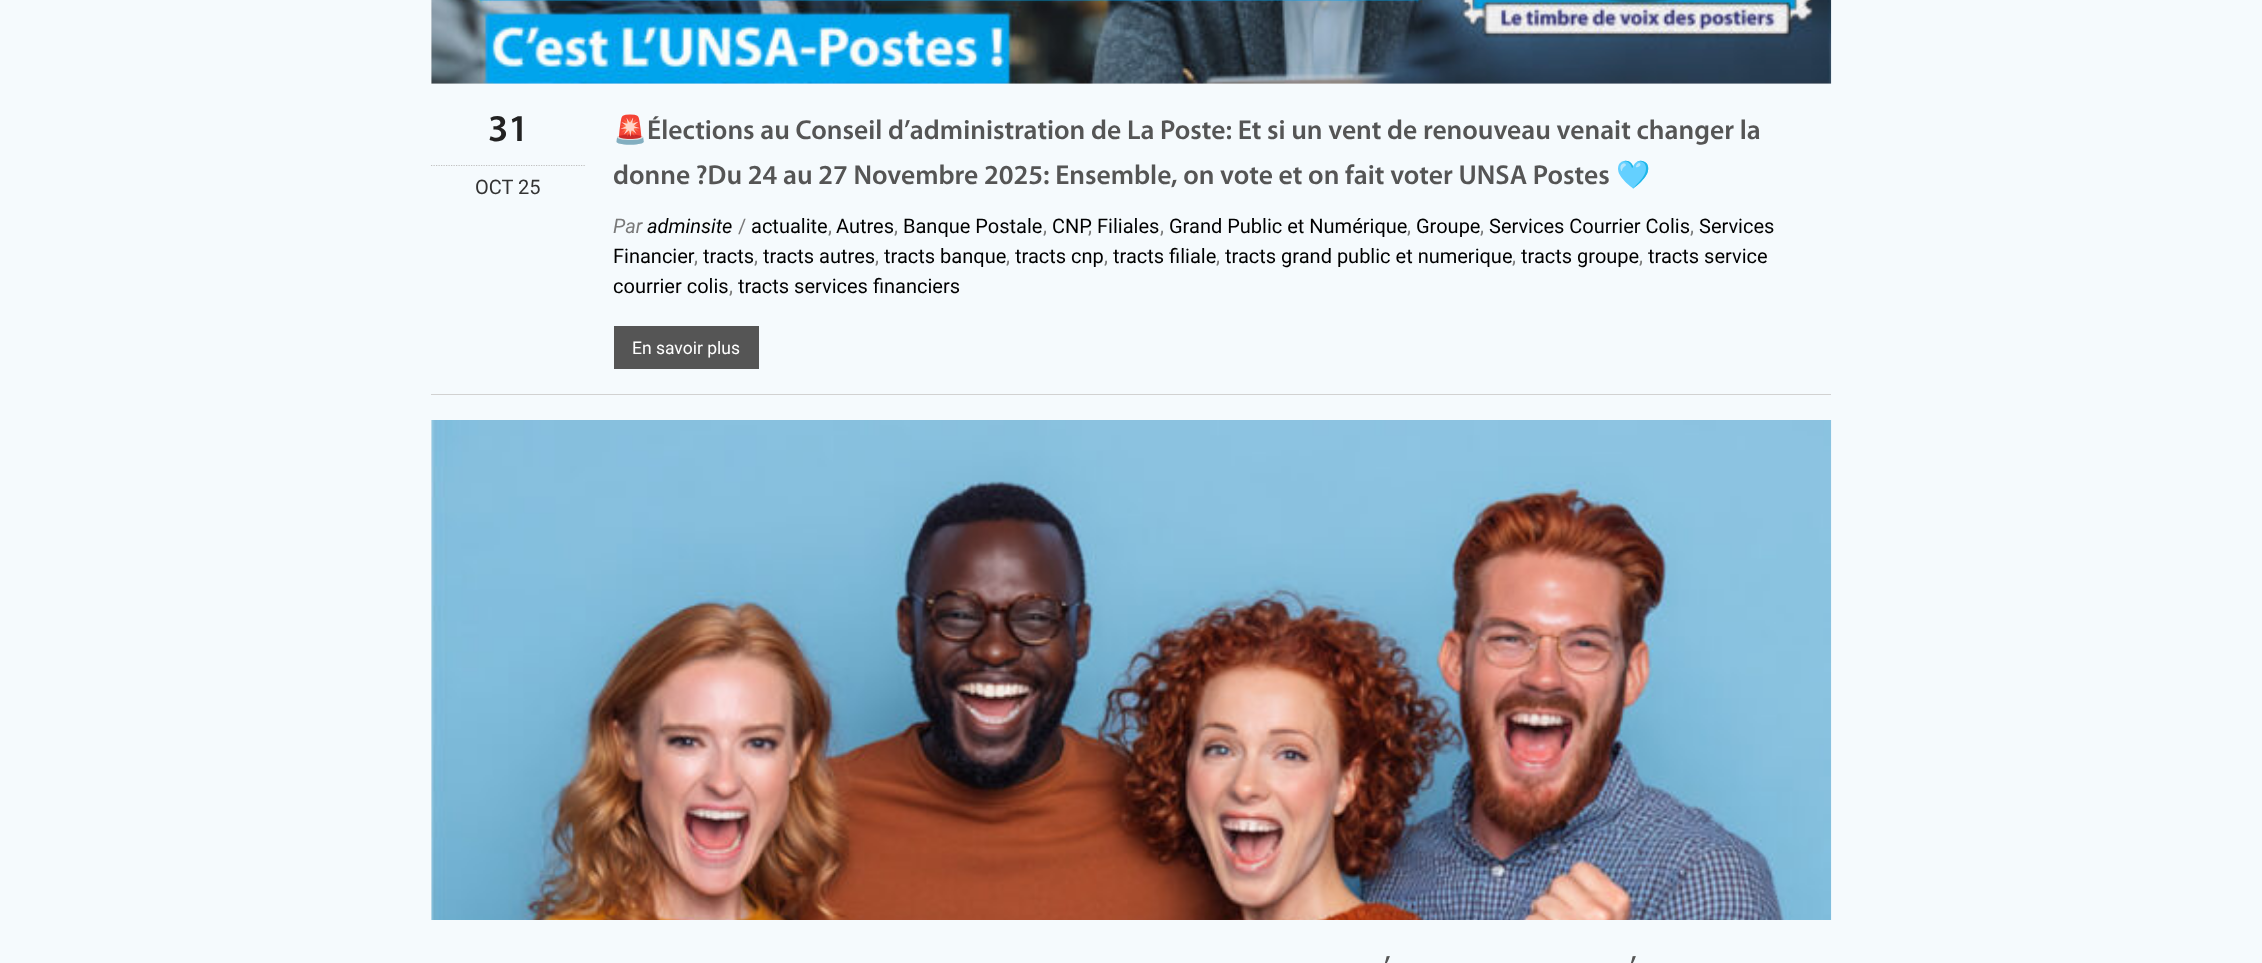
<svg xmlns="http://www.w3.org/2000/svg" width="2262" height="963">
	<rect width="100%" height="100%" fill="#F5FAFD" />
	<rect x="431" y="394" width="1400" height="1" fill="#D1D1D1" />
	<rect x="431" y="0" width="1400" height="84" fill="#F1F1F1" />
	<image x="431" y="0" width="1401" height="84" href="assets/img1.png" />
	<path d="M431 165.5H585" fill="none" stroke="#C0C0C0" stroke-width="1.2" stroke-dasharray="1.25 1.25" />
	<text x="488" y="141" font-family="Myriad" font-size="38" font-weight="600" fill="#222222">31</text>
	<text x="475" y="194" font-family="Roboto" font-size="20" fill="#333333">OCT 25</text>
	<text x="613" y="139" font-family="Noto Color Emoji" font-size="27.5" font-weight="700" fill="#555555">🚨</text>
	<g font-family="Myriad" font-size="27.5" font-weight="600" fill="#555555">
		<text x="647" y="139">Élections au Conseil d’administration de La Poste: Et si un vent de renouveau venait changer la</text>
		<text x="613" y="184">donne ?Du 24 au 27 Novembre 2025: Ensemble, on vote et on fait voter UNSA Postes</text>
	</g>
	<text x="1616" y="184" font-family="Noto Color Emoji" font-size="27.5" font-weight="700" fill="#555555">🩵</text>
	<text x="613" y="233" font-family="Roboto" font-size="20" font-style="italic" fill="#7A7A7A">Par</text>
	<text x="647" y="233" font-family="Roboto" font-size="20" font-style="italic" fill="#000000">adminsite</text>
	<text x="738" y="233" font-family="Roboto" font-size="20" fill="#7A7A7A">/</text>
	<text x="751" y="233" font-family="Roboto" font-size="20" fill="#000000">actualite</text>
	<text x="828" y="233" font-family="Roboto" font-size="20" fill="#7A7A7A">,</text>
	<text x="836" y="233" font-family="Roboto" font-size="20" fill="#000000">Autres</text>
	<text x="894" y="233" font-family="Roboto" font-size="20" fill="#7A7A7A">,</text>
	<text x="903" y="233" font-family="Roboto" font-size="20" fill="#000000">Banque Postale</text>
	<text x="1043" y="233" font-family="Roboto" font-size="20" fill="#7A7A7A">,</text>
	<g font-family="Roboto" font-size="20" fill="#000000">
		<text x="1052" y="233">CNP</text>
		<text x="1097" y="233">Filiales</text>
		<text x="1169" y="233">Grand Public et Numérique</text>
		<text x="1416" y="233">Groupe</text>
		<text x="1489" y="233">Services Courrier Colis</text>
		<text x="1699" y="233">Services</text>
	</g>
	<g font-family="Roboto" font-size="20" fill="#7A7A7A">
		<text x="1088" y="233">,</text>
		<text x="1160" y="233">,</text>
		<text x="1407" y="233">,</text>
		<text x="1480" y="233">,</text>
		<text x="1690" y="233">,</text>
	</g>
	<g font-family="Roboto" font-size="20" fill="#000000">
		<text x="613" y="263">Financier</text>
		<text x="703" y="263">tracts</text>
		<text x="763" y="263">tracts autres</text>
		<text x="884" y="263">tracts banque</text>
		<text x="1015" y="263">tracts cnp</text>
		<text x="1113" y="263">tracts filiale</text>
		<text x="1225" y="263">tracts grand public et numerique</text>
		<text x="1521" y="263">tracts groupe</text>
		<text x="1648" y="263">tracts service</text>
	</g>
	<g font-family="Roboto" font-size="20" fill="#7A7A7A">
		<text x="694" y="263">,</text>
		<text x="754" y="263">,</text>
		<text x="875" y="263">,</text>
		<text x="1006" y="263">,</text>
		<text x="1104" y="263">,</text>
		<text x="1216" y="263">,</text>
		<text x="1512" y="263">,</text>
		<text x="1639" y="263">,</text>
	</g>
	<text x="613" y="293" font-family="Roboto" font-size="20" fill="#000000">courrier colis</text>
	<text x="729" y="293" font-family="Roboto" font-size="20" fill="#7A7A7A">,</text>
	<text x="738" y="293" font-family="Roboto" font-size="20" fill="#000000">tracts services financiers</text>
	<rect x="614" y="326" width="145" height="43" fill="#555555" />
	<text x="632" y="354" font-family="Roboto" font-size="17.5" fill="#FFFFFF">En savoir plus</text>
	<rect x="431" y="420" width="1" height="500" fill="#F1F1F1" />
	<image x="431" y="420" width="1401" height="500" href="assets/img2.png" />
	<g font-family="Myriad" font-size="27.5" font-weight="600" fill="#555555">
		<text x="1384" y="975">’</text>
		<text x="1630" y="975">’</text>
	</g>
</svg>
